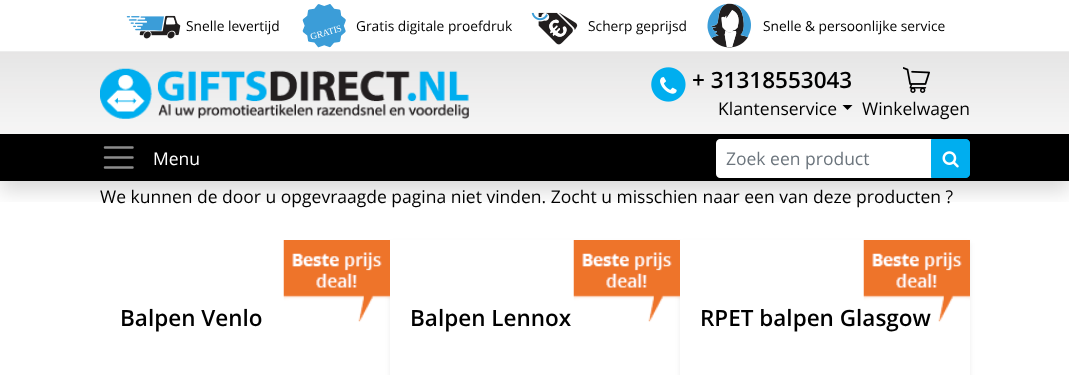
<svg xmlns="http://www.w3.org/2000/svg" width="1069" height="375">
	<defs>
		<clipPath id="clip1"><rect x="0" y="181" width="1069" height="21" /></clipPath>
	</defs>
	<rect width="100%" height="100%" fill="#FFFFFF" />
	<image x="0" y="51" width="1069" height="83" href="assets/img1.png" />
	<g clip-path="url(#clip1)">
		<rect x="0" y="10" width="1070" height="181" fill="#000000" fill-opacity="0.15" filter="blur(10px)" />
	</g>
	<image x="126" y="15" width="55" height="24" href="assets/img2.png" />
	<text x="186" y="31" font-family="Open Sans" font-size="13.75" fill="#000000">Snelle levertijd</text>
	<image x="302" y="4" width="44" height="44" href="assets/img3.png" />
	<text x="356" y="31" font-family="Open Sans" font-size="13.75" fill="#000000">Gratis digitale proefdruk</text>
	<image x="531" y="12" width="47" height="33" href="assets/img4.png" />
	<text x="588" y="31" font-family="Open Sans" font-size="13.75" fill="#000000">Scherp geprijsd</text>
	<image x="707" y="3" width="44" height="45" href="assets/img5.png" />
	<text x="763" y="31" font-family="Open Sans" font-size="13.75" fill="#000000">Snelle &amp; persoonlijke service</text>
	<image x="100" y="68" width="369" height="51" href="assets/img6.png" />
	<image x="651" y="67" width="35" height="35" href="assets/img7.png" />
	<image x="660" y="77" width="17" height="17" href="assets/img8.png" />
	<text x="692" y="88" font-family="Open Sans" font-size="22.5" font-weight="600" fill="#000000">+ 31318553043</text>
	<text x="718" y="115" font-family="Open Sans" font-size="17.5" fill="#000000">Klantenservice</text>
	<path d="M842.5 105H852.5L847.5 110Z" fill="#000000" />
	<image x="903" y="67" width="27" height="26" href="assets/img9.png" />
	<text x="862" y="115" font-family="Open Sans" font-size="17.5" fill="#000000">Winkelwagen</text>
	<rect x="0" y="134" width="1069" height="47" fill="#000000" />
	<path d="M105 147.5H132.5M105 157.5H132.5M105 167.5H132.5" fill="none" stroke="#8C8C8C" stroke-width="2.5" stroke-linecap="round" />
	<text x="153" y="165" font-family="Open Sans" font-size="17.5" fill="#FFFFFF">Menu</text>
	<path d="M720 139H933V178H720C718 178 716 176 716 174V143C716 141 718 139 720 139Z" fill="#FFFFFF" />
	<text x="726" y="165" font-family="Open Sans" font-size="17.5" fill="#6C757D">Zoek een product</text>
	<path d="M931.5 139.5H966C968 139.5 969.5 141 969.5 143V174C969.5 176 968 177.5 966 177.5H931.5Z" fill="#00AEEF" stroke="#00AEEF" />
	<image x="942" y="151" width="17" height="17" href="assets/img10.png" />
	<text x="100" y="203" font-family="Open Sans" font-size="17.5" fill="#000000">We kunnen de door u opgevraagde pagina niet vinden. Zocht u misschien naar een van deze producten ?</text>
	<text x="120" y="326" font-family="Open Sans" font-size="22.5" font-weight="600" fill="#000000">Balpen Venlo</text>
	<rect x="390" y="243" width="290" height="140" fill="#000000" fill-opacity="0.07" filter="blur(2.5px)" />
	<image x="283" y="240" width="107" height="82" href="assets/img11.png" />
	<rect x="390" y="240" width="290" height="135" fill="#FFFFFF" />
	<text x="410" y="326" font-family="Open Sans" font-size="22.5" font-weight="600" fill="#000000">Balpen Lennox</text>
	<rect x="680" y="243" width="290" height="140" fill="#000000" fill-opacity="0.07" filter="blur(2.5px)" />
	<image x="573" y="240" width="107" height="82" href="assets/img11.png" />
	<rect x="680" y="240" width="290" height="135" fill="#FFFFFF" />
	<text x="700" y="326" font-family="Open Sans" font-size="22.5" font-weight="600" fill="#000000">RPET balpen Glasgow</text>
	<image x="863" y="240" width="107" height="82" href="assets/img12.png" />
</svg>
